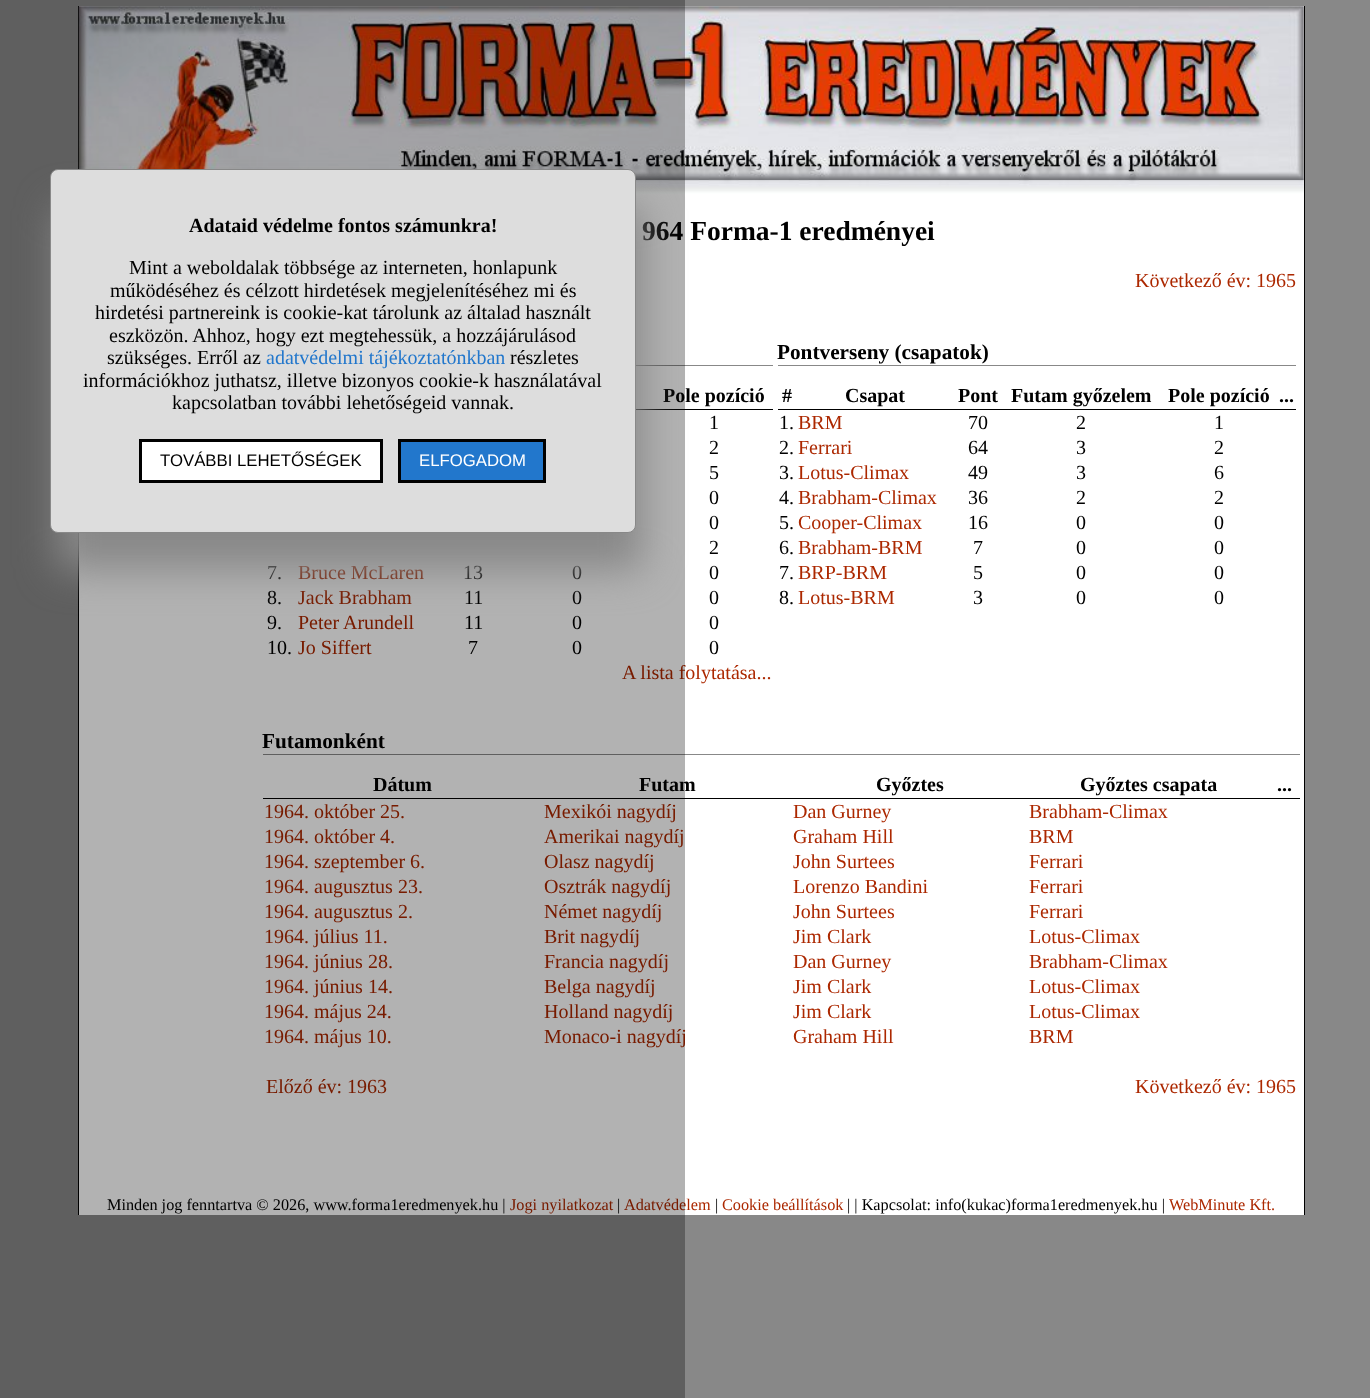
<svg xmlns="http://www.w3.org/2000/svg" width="1370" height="1398">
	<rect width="100%" height="100%" fill="#888888" />
	<rect x="79" y="6" width="1225" height="1209" fill="#FFFFFF" />
	<rect x="78" y="6" width="1" height="1209" fill="#000000" />
	<image x="78" y="6" width="1226" height="188" href="assets/img1.png" />
	<text x="642" y="240" font-family="Liberation Serif" font-size="27.5" font-weight="700" fill="#000000">964 Forma-1 eredményei</text>
	<rect x="636" y="365" width="137" height="1" fill="#888888" />
	<text x="663" y="402" font-family="Liberation Serif" font-size="20" font-weight="700" fill="#000000">Pole pozíció</text>
	<rect x="636" y="409" width="137" height="1" fill="#000000" />
	<text x="267" y="579" font-family="Liberation Serif" font-size="20" fill="#000000">7.</text>
	<text x="298" y="579" font-family="Liberation Serif" font-size="20" fill="#AC2800">Bruce McLaren</text>
	<g font-family="Liberation Serif" font-size="20" fill="#000000">
		<text x="463" y="579">13</text>
		<text x="572" y="579">0</text>
		<text x="267" y="604">8.</text>
	</g>
	<text x="298" y="604" font-family="Liberation Serif" font-size="20" fill="#AC2800">Jack Brabham</text>
	<g font-family="Liberation Serif" font-size="20" fill="#000000">
		<text x="464" y="604">11</text>
		<text x="572" y="604">0</text>
		<text x="267" y="629">9.</text>
	</g>
	<text x="298" y="629" font-family="Liberation Serif" font-size="20" fill="#AC2800">Peter Arundell</text>
	<g font-family="Liberation Serif" font-size="20" fill="#000000">
		<text x="464" y="629">11</text>
		<text x="572" y="629">0</text>
		<text x="267" y="654">10.</text>
	</g>
	<text x="298" y="654" font-family="Liberation Serif" font-size="20" fill="#AC2800">Jo Siffert</text>
	<g font-family="Liberation Serif" font-size="20" fill="#000000">
		<text x="468" y="654">7</text>
		<text x="572" y="654">0</text>
	</g>
	<text x="622" y="679" font-family="Liberation Serif" font-size="20" fill="#AC2800">A lista folytatása...</text>
	<rect x="263" y="754" width="1037" height="1" fill="#888888" />
	<text x="262" y="748" font-family="Liberation Serif" font-size="21.25" font-weight="700" fill="#000000">Futamonként</text>
	<rect x="263" y="798" width="1037" height="1" fill="#000000" />
	<g font-family="Liberation Serif" font-size="20" font-weight="700" fill="#000000">
		<text x="373" y="791">Dátum</text>
		<text x="639" y="791">Futam</text>
	</g>
	<g font-family="Liberation Serif" font-size="20" fill="#AC2800">
		<text x="264" y="818">1964. október 25.</text>
		<text x="544" y="818">Mexikói nagydíj</text>
		<text x="264" y="843">1964. október 4.</text>
		<text x="544" y="843">Amerikai nagydíj</text>
		<text x="264" y="868">1964. szeptember 6.</text>
		<text x="544" y="868">Olasz nagydíj</text>
		<text x="264" y="893">1964. augusztus 23.</text>
		<text x="544" y="893">Osztrák nagydíj</text>
		<text x="264" y="918">1964. augusztus 2.</text>
		<text x="544" y="918">Német nagydíj</text>
		<text x="264" y="943">1964. július 11.</text>
		<text x="544" y="943">Brit nagydíj</text>
		<text x="264" y="968">1964. június 28.</text>
		<text x="544" y="968">Francia nagydíj</text>
		<text x="264" y="993">1964. június 14.</text>
		<text x="544" y="993">Belga nagydíj</text>
		<text x="264" y="1018">1964. május 24.</text>
		<text x="544" y="1018">Holland nagydíj</text>
		<text x="264" y="1043">1964. május 10.</text>
		<text x="544" y="1043">Monaco-i nagydíj</text>
		<text x="266" y="1093">Előző év: 1963</text>
	</g>
	<text x="107" y="1210" font-family="Liberation Serif" font-size="16.25" fill="#000000">Minden jog fenntartva © 2026, www.forma1eredmenyek.hu |</text>
	<text x="510" y="1210" font-family="Liberation Serif" font-size="16.25" fill="#AC2800">Jogi nyilatkozat</text>
	<text x="617" y="1210" font-family="Liberation Serif" font-size="16.25" fill="#000000">|</text>
	<text x="624" y="1210" font-family="Liberation Serif" font-size="16.25" fill="#AC2800">Adatvédelem</text>
	<rect x="0" y="0" width="685" height="1398" fill="#000000" fill-opacity="0.3" />
	<rect x="56" y="206" width="587" height="364" rx="8" fill="#888888" filter="blur(19px)" />
	<rect x="50.5" y="169.5" width="585" height="363" rx="7.5" fill="#DDDDDD" stroke="#888888" />
	<text x="189" y="232" font-family="Liberation Serif" font-size="20" font-weight="700" fill="#000000">Adataid védelme fontos számunkra!</text>
	<g font-family="Liberation Serif" font-size="20" fill="#000000">
		<text x="129" y="274">Mint a weboldalak többsége az interneten, honlapunk</text>
		<text x="110" y="297">működéséhez és célzott hirdetések megjelenítéséhez mi és</text>
		<text x="95" y="319">hirdetési partnereink is cookie-kat tárolunk az általad használt</text>
		<text x="109" y="342">eszközön. Ahhoz, hogy ezt megtehessük, a hozzájárulásod</text>
		<text x="107" y="364">szükséges. Erről az</text>
	</g>
	<text x="266" y="364" font-family="Liberation Serif" font-size="20" fill="#2277CC">adatvédelmi tájékoztatónkban</text>
	<g font-family="Liberation Serif" font-size="20" fill="#000000">
		<text x="510" y="364">részletes</text>
		<text x="83" y="387">információkhoz juthatsz, illetve bizonyos cookie-k használatával</text>
		<text x="172" y="409">kapcsolatban további lehetőségeid vannak.</text>
	</g>
	<rect x="140.5" y="440.5" width="241" height="41" fill="#FFFFFF" stroke="#000000" stroke-width="3" />
	<text x="160" y="466" font-family="Liberation Sans" font-size="16.75" fill="#000000">TOVÁBBI LEHETŐSÉGEK</text>
	<rect x="399.5" y="440.5" width="145" height="41" fill="#2277CC" stroke="#000000" stroke-width="3" />
	<text x="419" y="466" font-family="Liberation Sans" font-size="16.75" fill="#FFFFFF">ELFOGADOM</text>
	<rect x="1304" y="6" width="1" height="1209" fill="#000000" />
	<text x="1135" y="287" font-family="Liberation Serif" font-size="20" fill="#AC2800">Következő év: 1965</text>
	<g font-family="Liberation Serif" font-size="20" fill="#000000">
		<text x="709" y="429">1</text>
		<text x="709" y="454">2</text>
		<text x="709" y="479">5</text>
		<text x="709" y="504">0</text>
		<text x="709" y="529">0</text>
		<text x="709" y="554">2</text>
		<text x="709" y="579">0</text>
		<text x="709" y="604">0</text>
		<text x="709" y="629">0</text>
		<text x="709" y="654">0</text>
	</g>
	<rect x="778" y="365" width="518" height="1" fill="#888888" />
	<text x="777" y="359" font-family="Liberation Serif" font-size="21.25" font-weight="700" fill="#000000">Pontverseny (csapatok)</text>
	<rect x="778" y="409" width="518" height="1" fill="#000000" />
	<g font-family="Liberation Serif" font-size="20" font-weight="700" fill="#000000">
		<text x="782" y="402">#</text>
		<text x="845" y="402">Csapat</text>
		<text x="958" y="402">Pont</text>
		<text x="1011" y="402">Futam győzelem</text>
		<text x="1168" y="402">Pole pozíció</text>
		<text x="1279" y="402">...</text>
	</g>
	<text x="779" y="429" font-family="Liberation Serif" font-size="20" fill="#000000">1.</text>
	<text x="798" y="429" font-family="Liberation Serif" font-size="20" fill="#AC2800">BRM</text>
	<g font-family="Liberation Serif" font-size="20" fill="#000000">
		<text x="968" y="429">70</text>
		<text x="1076" y="429">2</text>
		<text x="1214" y="429">1</text>
		<text x="779" y="454">2.</text>
	</g>
	<text x="798" y="454" font-family="Liberation Serif" font-size="20" fill="#AC2800">Ferrari</text>
	<g font-family="Liberation Serif" font-size="20" fill="#000000">
		<text x="968" y="454">64</text>
		<text x="1076" y="454">3</text>
		<text x="1214" y="454">2</text>
		<text x="779" y="479">3.</text>
	</g>
	<text x="798" y="479" font-family="Liberation Serif" font-size="20" fill="#AC2800">Lotus-Climax</text>
	<g font-family="Liberation Serif" font-size="20" fill="#000000">
		<text x="968" y="479">49</text>
		<text x="1076" y="479">3</text>
		<text x="1214" y="479">6</text>
		<text x="779" y="504">4.</text>
	</g>
	<text x="798" y="504" font-family="Liberation Serif" font-size="20" fill="#AC2800">Brabham-Climax</text>
	<g font-family="Liberation Serif" font-size="20" fill="#000000">
		<text x="968" y="504">36</text>
		<text x="1076" y="504">2</text>
		<text x="1214" y="504">2</text>
		<text x="779" y="529">5.</text>
	</g>
	<text x="798" y="529" font-family="Liberation Serif" font-size="20" fill="#AC2800">Cooper-Climax</text>
	<g font-family="Liberation Serif" font-size="20" fill="#000000">
		<text x="968" y="529">16</text>
		<text x="1076" y="529">0</text>
		<text x="1214" y="529">0</text>
		<text x="779" y="554">6.</text>
	</g>
	<text x="798" y="554" font-family="Liberation Serif" font-size="20" fill="#AC2800">Brabham-BRM</text>
	<g font-family="Liberation Serif" font-size="20" fill="#000000">
		<text x="973" y="554">7</text>
		<text x="1076" y="554">0</text>
		<text x="1214" y="554">0</text>
		<text x="779" y="579">7.</text>
	</g>
	<text x="798" y="579" font-family="Liberation Serif" font-size="20" fill="#AC2800">BRP-BRM</text>
	<g font-family="Liberation Serif" font-size="20" fill="#000000">
		<text x="973" y="579">5</text>
		<text x="1076" y="579">0</text>
		<text x="1214" y="579">0</text>
		<text x="779" y="604">8.</text>
	</g>
	<text x="798" y="604" font-family="Liberation Serif" font-size="20" fill="#AC2800">Lotus-BRM</text>
	<g font-family="Liberation Serif" font-size="20" fill="#000000">
		<text x="973" y="604">3</text>
		<text x="1076" y="604">0</text>
		<text x="1214" y="604">0</text>
	</g>
	<g font-family="Liberation Serif" font-size="20" font-weight="700" fill="#000000">
		<text x="876" y="791">Győztes</text>
		<text x="1080" y="791">Győztes csapata</text>
		<text x="1277" y="791">...</text>
	</g>
	<g font-family="Liberation Serif" font-size="20" fill="#AC2800">
		<text x="793" y="818">Dan Gurney</text>
		<text x="1029" y="818">Brabham-Climax</text>
		<text x="793" y="843">Graham Hill</text>
		<text x="1029" y="843">BRM</text>
		<text x="793" y="868">John Surtees</text>
		<text x="1029" y="868">Ferrari</text>
		<text x="793" y="893">Lorenzo Bandini</text>
		<text x="1029" y="893">Ferrari</text>
		<text x="793" y="918">John Surtees</text>
		<text x="1029" y="918">Ferrari</text>
		<text x="793" y="943">Jim Clark</text>
		<text x="1029" y="943">Lotus-Climax</text>
		<text x="793" y="968">Dan Gurney</text>
		<text x="1029" y="968">Brabham-Climax</text>
		<text x="793" y="993">Jim Clark</text>
		<text x="1029" y="993">Lotus-Climax</text>
		<text x="793" y="1018">Jim Clark</text>
		<text x="1029" y="1018">Lotus-Climax</text>
		<text x="793" y="1043">Graham Hill</text>
		<text x="1029" y="1043">BRM</text>
		<text x="1135" y="1093">Következő év: 1965</text>
	</g>
	<text x="715" y="1210" font-family="Liberation Serif" font-size="16.25" fill="#000000">|</text>
	<text x="722" y="1210" font-family="Liberation Serif" font-size="16.25" fill="#AC2800">Cookie beállítások</text>
	<text x="847" y="1210" font-family="Liberation Serif" font-size="16.25" fill="#000000">| | Kapcsolat: info(kukac)forma1eredmenyek.hu |</text>
	<text x="1169" y="1210" font-family="Liberation Serif" font-size="16.25" fill="#AC2800">WebMinute Kft.</text>
</svg>
